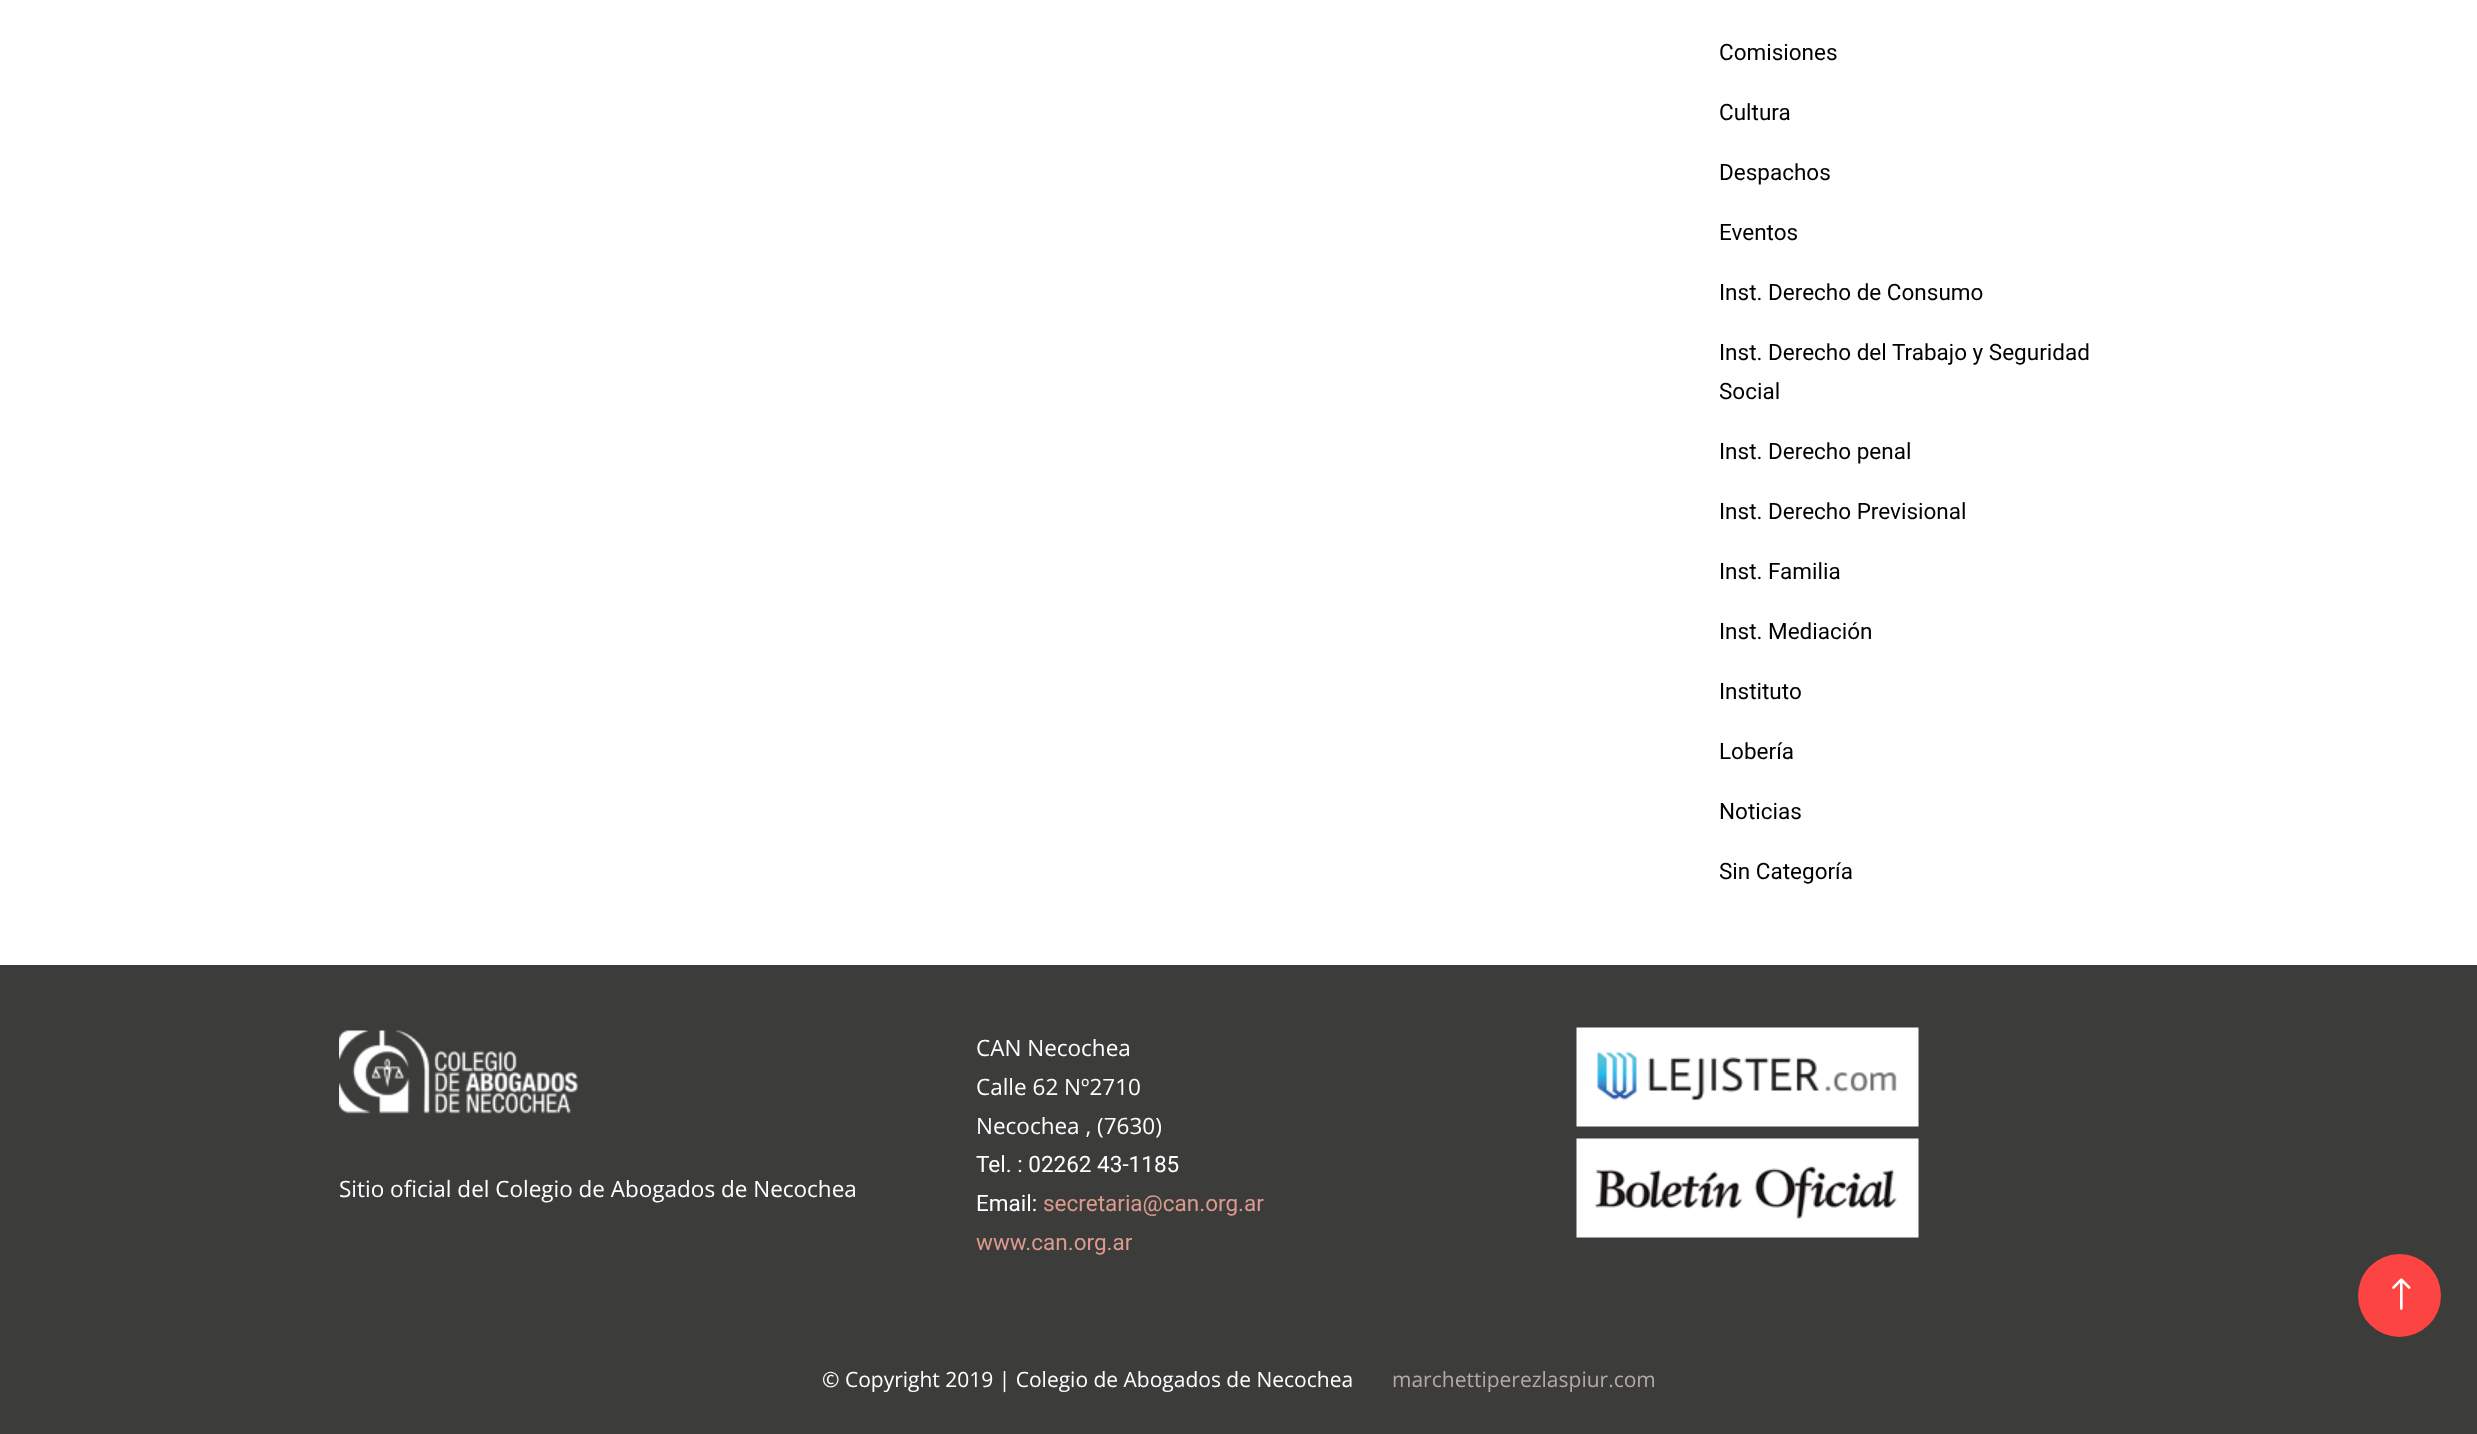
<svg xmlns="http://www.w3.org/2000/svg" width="2477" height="1434">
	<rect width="100%" height="100%" fill="#FFFFFF" />
	<g font-family="Roboto" font-size="22.5" fill="#000000">
		<text x="1719" y="60">Comisiones</text>
		<text x="1719" y="120">Cultura</text>
		<text x="1719" y="180">Despachos</text>
		<text x="1719" y="240">Eventos</text>
		<text x="1719" y="300">Inst. Derecho de Consumo</text>
		<text x="1719" y="360">Inst. Derecho del Trabajo y Seguridad</text>
		<text x="1719" y="399">Social</text>
		<text x="1719" y="459">Inst. Derecho penal</text>
		<text x="1719" y="519">Inst. Derecho Previsional</text>
		<text x="1719" y="579">Inst. Familia</text>
		<text x="1719" y="639">Inst. Mediación</text>
		<text x="1719" y="699">Instituto</text>
		<text x="1719" y="759">Lobería</text>
		<text x="1719" y="819">Noticias</text>
		<text x="1719" y="879">Sin Categoría</text>
	</g>
	<rect x="0" y="965" width="2477" height="469" fill="#3C3C3B" />
	<image x="339" y="1030" width="239" height="84" href="assets/img1.png" />
	<g font-family="Open Sans" font-size="22.5" fill="#FFFFFF">
		<text x="339" y="1197">Sitio oficial del Colegio de Abogados de Necochea</text>
		<text x="976" y="1056">CAN Necochea</text>
		<text x="976" y="1095">Calle 62 Nº2710</text>
		<text x="976" y="1134">Necochea , (7630)</text>
	</g>
	<g font-family="Roboto" font-size="22.5" fill="#FFFFFF">
		<text x="976" y="1172">Tel. : 02262 43-1185</text>
		<text x="976" y="1211">Email:</text>
	</g>
	<g font-family="Roboto" font-size="22.5" fill="#DB9A8E">
		<text x="1043" y="1211">secretaria@can.org.ar</text>
		<text x="976" y="1250">www.can.org.ar</text>
	</g>
	<image x="1576" y="1027" width="343" height="100" href="assets/img2.png" />
	<image x="1576" y="1138" width="343" height="100" href="assets/img3.png" />
	<text x="822" y="1387" font-family="Open Sans" font-size="21" fill="#FFFFFF">© Copyright 2019 | Colegio de Abogados de Necochea</text>
	<text x="1392" y="1387" font-family="Open Sans" font-size="21" fill="#B2AAAA">marchettiperezlaspiur.com</text>
	<circle cx="2399.5" cy="1295.5" r="41.5" fill="#FC4442" />
	<image x="2392" y="1278" width="19" height="32" href="assets/img4.png" />
</svg>
